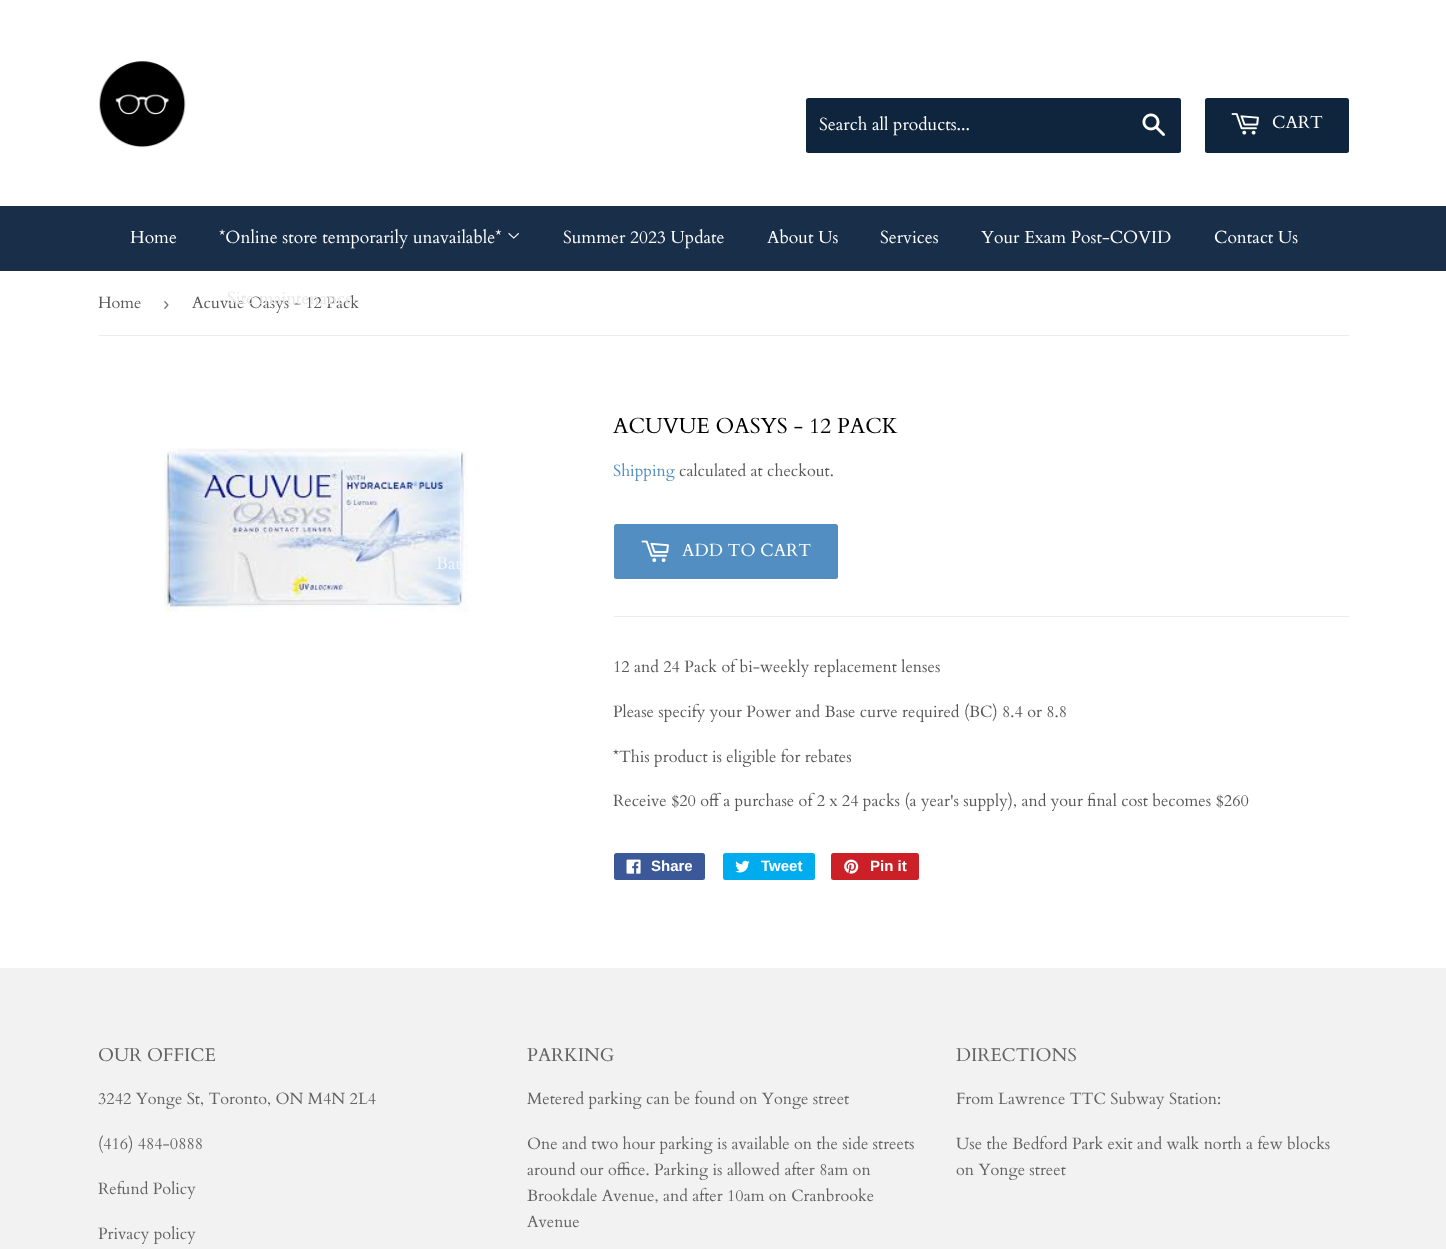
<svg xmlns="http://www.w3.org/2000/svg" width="1446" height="1249">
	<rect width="100%" height="100%" fill="#FFFFFF" />
	<image x="99" y="61" width="87" height="87" href="assets/img1.png" />
	<rect x="806" y="98" width="375" height="55" rx="2.5" fill="#0F243D" />
	<text x="819" y="130" font-family="Cardo" font-size="17.5" fill="#FFFFFF">Search all products...</text>
	<image x="1142" y="113" width="23" height="23" href="assets/img2.png" />
	<rect x="1205" y="98" width="144" height="55" rx="2.5" fill="#0F243D" />
	<image x="1231" y="113" width="28" height="22" href="assets/img3.png" />
	<text x="1272" y="128" font-family="Cardo" font-size="17.5" fill="#FFFFFF">CART</text>
	<rect x="0" y="206" width="1446" height="65" fill="#182E49" />
	<g font-family="Cardo" font-size="17.5" fill="#FFFFFF">
		<text x="130" y="243">Home</text>
		<text x="219" y="243">*Online store temporarily unavailable*</text>
	</g>
	<image x="508" y="232" width="11" height="7" href="assets/img4.png" />
	<text x="192" y="308" font-family="Cardo" font-size="16.25" fill="#585858">Acuvue Oasys - 12 Pack</text>
	<text x="227" y="304" font-family="Cardo" font-size="17.5" fill="#E8E8E8">Site maintenance</text>
	<image x="164" y="448" width="304" height="164" href="assets/img5.png" />
	<text x="436" y="569" font-family="Cardo" font-size="17.5" fill="#F3F7FC">Bau</text>
	<g font-family="Cardo" font-size="17.5" fill="#FFFFFF">
		<text x="563" y="243">Summer 2023 Update</text>
		<text x="767" y="243">About Us</text>
		<text x="880" y="243">Services</text>
		<text x="981" y="243">Your Exam Post-COVID</text>
		<text x="1214" y="243">Contact Us</text>
	</g>
	<rect x="99" y="335" width="1250" height="1" fill="#ECECEC" />
	<text x="98" y="308" font-family="Cardo" font-size="16.25" fill="#585858">Home</text>
	<text x="163" y="310" font-family="Liberation Sans" font-size="19" fill="#767676">›</text>
	<text x="613" y="433" font-family="Cardo" font-size="21.7" fill="#000000">ACUVUE OASYS - 12 PACK</text>
	<text x="613" y="476" font-family="Cardo" font-size="16.25" fill="#528EC1">Shipping</text>
	<text x="679" y="476" font-family="Cardo" font-size="16.25" fill="#585858">calculated at checkout.</text>
	<rect x="614" y="524" width="224" height="55" rx="2.5" fill="#528EC1" />
	<image x="641" y="540" width="28" height="23" href="assets/img6.png" />
	<text x="682" y="556" font-family="Cardo" font-size="17.5" fill="#FFFFFF">ADD TO CART</text>
	<rect x="614" y="616" width="735" height="1" fill="#ECECEC" />
	<g font-family="Cardo" font-size="16.25" fill="#585858">
		<text x="613" y="672">12 and 24 Pack of bi-weekly replacement lenses</text>
		<text x="613" y="717">Please specify your Power and Base curve required (BC) 8.4 or 8.8</text>
		<text x="613" y="762">*This product is eligible for rebates</text>
		<text x="613" y="806">Receive $20 off a purchase of 2 x 24 packs (a year's supply), and your final cost becomes $260</text>
	</g>
	<rect x="614" y="853" width="91" height="27" rx="2.5" fill="#3B5998" />
	<image x="626" y="859" width="15" height="15" href="assets/img7.png" />
	<text x="651" y="871" font-family="Liberation Sans" font-size="15" font-weight="700" fill="#FFFFFF">Share</text>
	<rect x="723" y="853" width="92" height="27" rx="2.5" fill="#00ACED" />
	<image x="735" y="860" width="15" height="13" href="assets/img8.png" />
	<text x="761" y="871" font-family="Liberation Sans" font-size="15" font-weight="700" fill="#FFFFFF">Tweet</text>
	<rect x="831" y="853" width="88" height="27" rx="2.5" fill="#CB2027" />
	<image x="844" y="859" width="15" height="15" href="assets/img9.png" />
	<text x="870" y="871" font-family="Liberation Sans" font-size="15" font-weight="700" fill="#FFFFFF">Pin it</text>
	<rect x="0" y="968" width="1446" height="281" fill="#F2F2F2" />
	<text x="98" y="1061" font-family="Cardo" font-size="18.5" fill="#636363">OUR OFFICE</text>
	<g font-family="Cardo" font-size="16.25" fill="#636363">
		<text x="98" y="1104">3242 Yonge St, Toronto, ON M4N 2L4</text>
		<text x="98" y="1149">(416) 484-0888</text>
		<text x="98" y="1194">Refund Policy</text>
		<text x="98" y="1239">Privacy policy</text>
	</g>
	<text x="527" y="1061" font-family="Cardo" font-size="18.5" fill="#636363">PARKING</text>
	<g font-family="Cardo" font-size="16.25" fill="#636363">
		<text x="527" y="1104">Metered parking can be found on Yonge street</text>
		<text x="527" y="1149">One and two hour parking is available on the side streets</text>
		<text x="527" y="1175">around our office. Parking is allowed after 8am on</text>
		<text x="527" y="1201">Brookdale Avenue, and after 10am on Cranbrooke</text>
		<text x="527" y="1227">Avenue</text>
	</g>
	<text x="956" y="1061" font-family="Cardo" font-size="18.5" fill="#636363">DIRECTIONS</text>
	<g font-family="Cardo" font-size="16.25" fill="#636363">
		<text x="956" y="1104">From Lawrence TTC Subway Station:</text>
		<text x="956" y="1149">Use the Bedford Park exit and walk north a few blocks</text>
		<text x="956" y="1175">on Yonge street</text>
	</g>
</svg>
